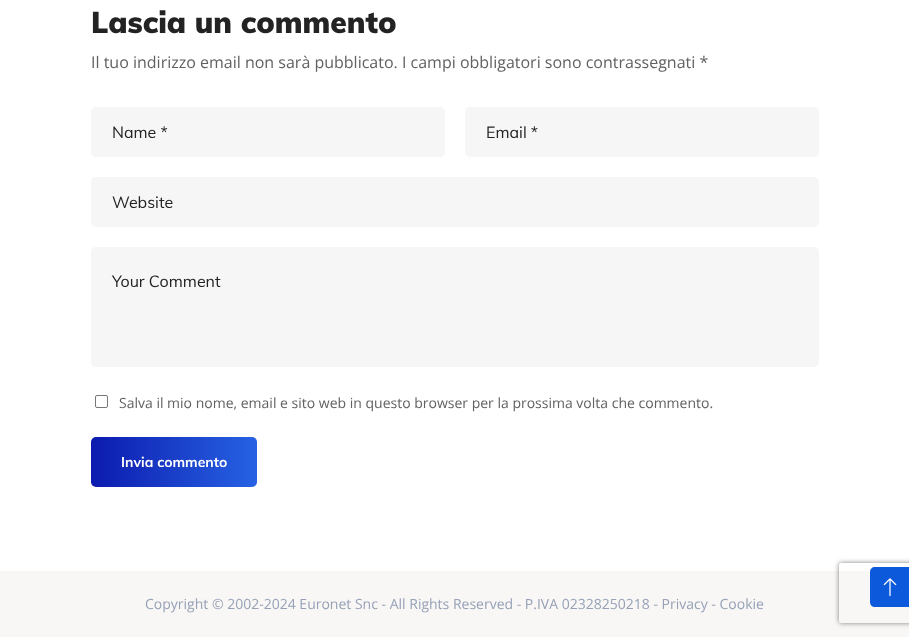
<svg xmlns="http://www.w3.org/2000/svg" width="909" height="637">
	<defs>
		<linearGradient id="g1" gradientUnits="userSpaceOnUse" x1="91" y1="462" x2="589" y2="462"><stop offset="0" stop-color="#0C1BAE" /><stop offset="0.5" stop-color="#3486FE" /><stop offset="1" stop-color="#0C1BAE" /></linearGradient>
		<clipPath id="clip1"><path d="M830 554H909V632H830ZM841 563H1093C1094 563 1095 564 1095 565V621C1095 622 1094 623 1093 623H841C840 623 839 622 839 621V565C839 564 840 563 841 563Z" clip-rule="evenodd" /></clipPath>
	</defs>
	<rect width="100%" height="100%" fill="#FFFFFF" />
	<text x="91" y="33" font-family="Muli" font-size="30" font-weight="900" fill="#232323">Lascia un commento</text>
	<text x="91" y="68" font-family="Open Sans" font-size="16" fill="#616161">Il tuo indirizzo email non sarà pubblicato. I campi obbligatori sono contrassegnati *</text>
	<rect x="91" y="107" width="354" height="50" rx="5" fill="#F6F6F6" />
	<text x="112" y="138" font-family="Muli" font-size="16" fill="#232323">Name *</text>
	<rect x="465" y="107" width="354" height="50" rx="5" fill="#F6F6F6" />
	<text x="486" y="138" font-family="Muli" font-size="16" fill="#232323">Email *</text>
	<rect x="91" y="177" width="728" height="50" rx="5" fill="#F6F6F6" />
	<text x="112" y="208" font-family="Muli" font-size="16" fill="#232323">Website</text>
	<rect x="91" y="247" width="728" height="120" rx="5" fill="#F6F6F6" />
	<text x="112" y="287" font-family="Muli" font-size="16" fill="#232323">Your Comment</text>
	<rect x="95.5" y="395.5" width="12" height="12" rx="1.5" fill="none" stroke="#767676" />
	<text x="119" y="408" font-family="Open Sans" font-size="14" fill="#616161">Salva il mio nome, email e sito web in questo browser per la prossima volta che commento.</text>
	<rect x="91" y="437" width="166" height="50" rx="5" fill="url(#g1)" />
	<text x="121" y="467" font-family="Muli" font-size="14" font-weight="700" fill="#FFFFFF">Invia commento</text>
	<rect x="0" y="571" width="909" height="66" fill="#F8F7F6" />
	<g clip-path="url(#clip1)">
		<rect x="839" y="563" width="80" height="60" rx="2" fill="#808080" filter="blur(2.5px)" />
	</g>
	<text x="145" y="609" font-family="Open Sans" font-size="14" fill="#96A1B6">Copyright © 2002-2024 Euronet Snc - All Rights Reserved - P.IVA 02328250218 - Privacy - Cookie</text>
	<path d="M875 567H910V607H875C872 607 870 605 870 602V572C870 569 872 567 875 567Z" fill="#0C5ADB" />
	<image x="883" y="578" width="14" height="19" href="assets/img1.png" />
</svg>
